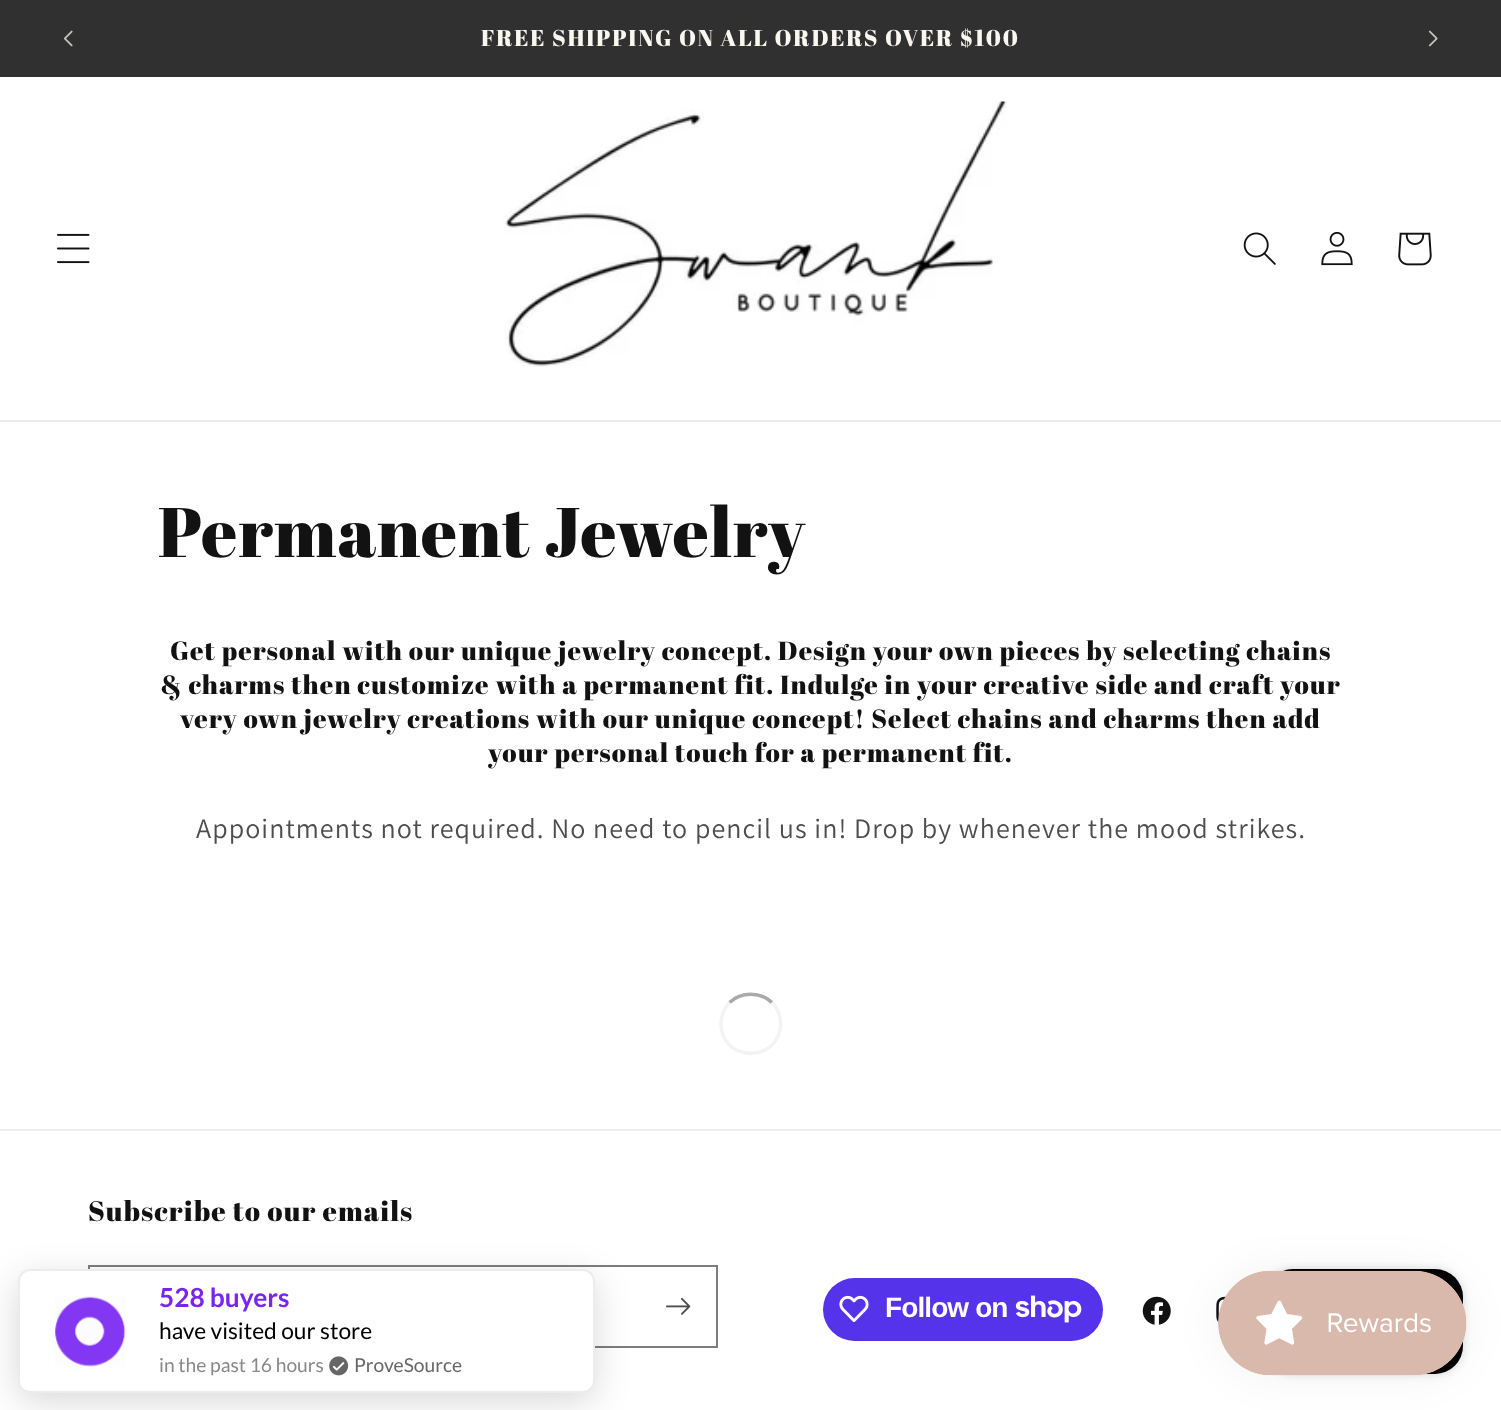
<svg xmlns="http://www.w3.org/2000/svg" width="1501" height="1410">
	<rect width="100%" height="100%" fill="#FFFFFF" />
	<rect x="0" y="0" width="1501" height="77" fill="#303030" />
	<image x="63" y="30" width="10" height="17" href="assets/img1.png" />
	<text x="481" y="46" font-family="Abril Fatface" font-size="22.75" letter-spacing="1.75" fill="#FAF7F0">FREE SHIPPING ON ALL ORDERS OVER $100</text>
	<image x="1428" y="30" width="10" height="17" href="assets/img2.png" />
	<rect x="0" y="420" width="1501" height="2" fill="#ECECEC" />
	<image x="57" y="233" width="33" height="31" href="assets/img3.png" />
	<image x="503" y="101" width="504" height="266" href="assets/img4.png" />
	<image x="1243" y="232" width="33" height="33" href="assets/img5.png" />
	<image x="1321" y="231" width="32" height="35" href="assets/img6.png" />
	<image x="1398" y="232" width="34" height="34" href="assets/img7.png" />
	<text x="158" y="557" font-family="Abril Fatface" font-size="70" letter-spacing="1.05" fill="#121212">Permanent Jewelry</text>
	<g font-family="Abril Fatface" font-size="26.25" letter-spacing="1.05" fill="#121212">
		<text x="170" y="660">Get personal with our unique jewelry concept. Design your own pieces by selecting chains</text>
		<text x="160" y="694">&amp; charms then customize with a permanent fit. Indulge in your creative side and craft your</text>
		<text x="180" y="728">very own jewelry creations with our unique concept! Select chains and charms then add</text>
		<text x="488" y="762">your personal touch for a permanent fit.</text>
	</g>
	<text x="196" y="838" font-family="Assistant" font-size="28" letter-spacing="1.05" fill="#4D4D4D">Appointments not required. No need to pencil us in! Drop by whenever the mood strikes.</text>
	<path d="M729.5 1002.5C741 991.5 760.5 991.5 772 1002.5" fill="none" stroke="#AAAAAA" stroke-width="3.5" />
	<path d="M772 1002.5C779 1009.5 782 1020 780 1029.5C773 1064.5 721 1059.5 721 1024C721 1016 724 1008.5 729.5 1002.5" fill="none" stroke="#F3F3F3" stroke-width="3.5" />
	<rect x="0" y="1129" width="1501" height="2" fill="#ECECEC" />
	<text x="88" y="1221" font-family="Abril Fatface" font-size="28" letter-spacing="1.05" fill="#121212">Subscribe to our emails</text>
	<rect x="89" y="1266" width="628" height="81" fill="none" stroke="#7D7D7D" stroke-width="2" />
	<image x="666" y="1298" width="25" height="17" href="assets/img8.png" />
	<rect x="823" y="1278" width="280" height="63" rx="31.5" fill="#5433EB" />
	<image x="839" y="1295" width="30" height="28" href="assets/img9.png" />
	<text x="885" y="1317" font-family="Liberation Sans" font-size="28" font-weight="700" letter-spacing="-0.9" fill="#FFFFFF">Follow on</text>
	<image x="1015" y="1295" width="67" height="28" href="assets/img10.png" />
	<image x="1142" y="1296" width="29" height="29" href="assets/img11.png" />
	<image x="1216" y="1296" width="10" height="27" href="assets/img12.png" />
	<rect x="1265" y="1269" width="198" height="105" rx="28" fill="#000000" fill-opacity="0.15" filter="blur(4.5px)" />
	<rect x="1265" y="1269" width="198" height="105" rx="28" fill="#000000" />
	<rect x="1218" y="1271" width="249" height="105" rx="52.5" fill="#000000" fill-opacity="0.05" filter="blur(22px)" />
	<image x="1218" y="1270" width="249" height="106" href="assets/img13.png" />
	<rect x="18" y="1278" width="577" height="124" rx="12" fill="#000000" fill-opacity="0.15" filter="blur(17.5px)" />
	<rect x="19" y="1270" width="575" height="122" rx="11" fill="#FFFFFF" stroke="#ECECEC" stroke-width="2" />
	<image x="55" y="1296" width="71" height="71" href="assets/img14.png" />
	<text x="159" y="1307" font-family="Lato" font-size="26.25" font-weight="700" fill="#7825F3">528 buyers</text>
	<text x="159" y="1339" font-family="Lato" font-size="22.75" fill="#000000">have visited our store</text>
	<text x="159" y="1372" font-family="Lato" font-size="19.25" fill="#888888">in the past 16 hours</text>
	<image x="329" y="1356" width="20" height="20" href="assets/img15.png" />
	<text x="354" y="1372" font-family="Lato" font-size="19.25" fill="#666666">ProveSource</text>
</svg>
